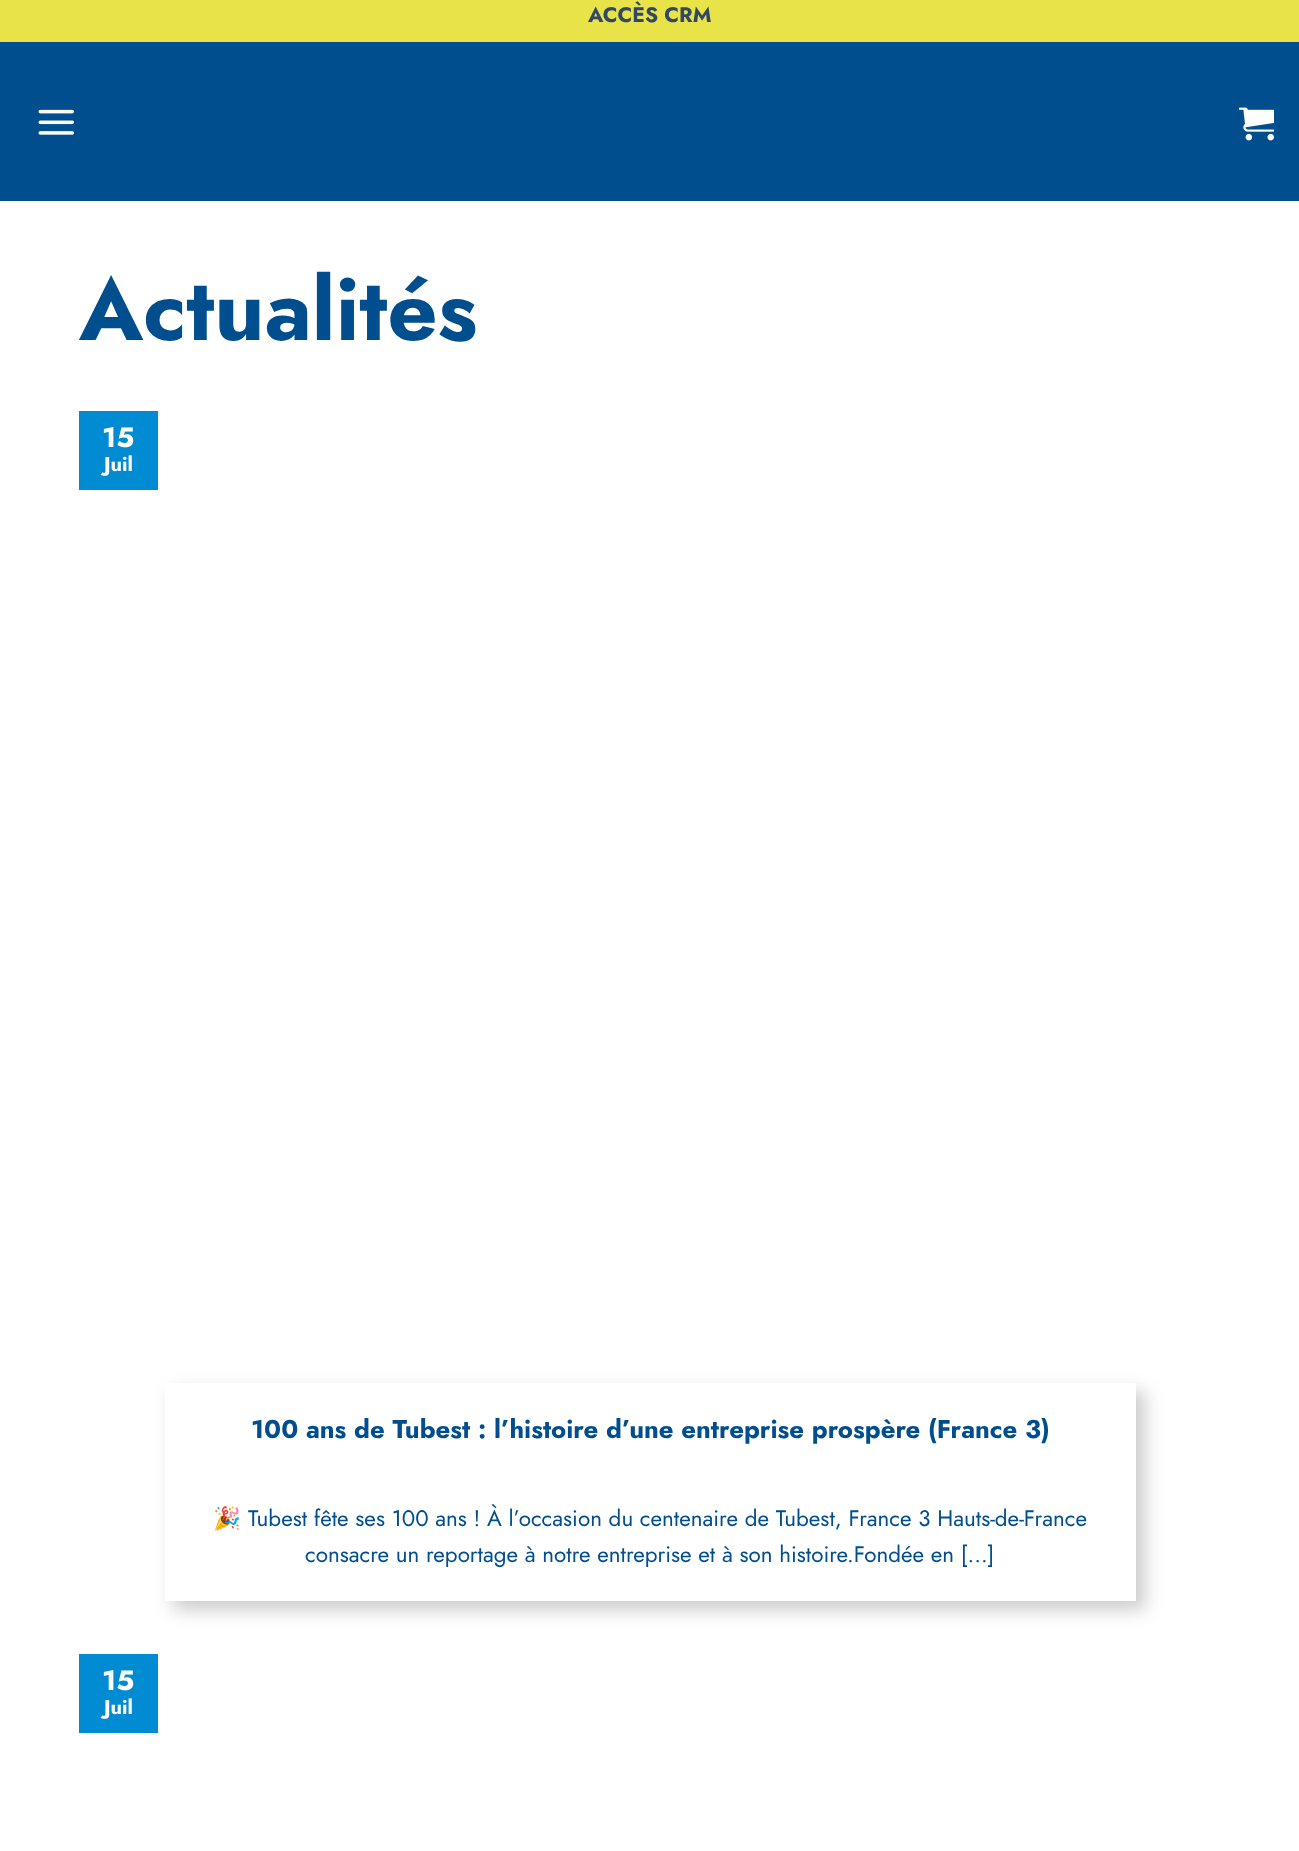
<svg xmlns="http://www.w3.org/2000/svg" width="1299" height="1851">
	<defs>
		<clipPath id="clip1"><path d="M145 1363H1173V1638H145ZM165 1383H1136V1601H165Z" clip-rule="evenodd" /></clipPath>
	</defs>
	<rect width="100%" height="100%" fill="#FFFFFF" />
	<rect x="0" y="0" width="1299" height="42" fill="#E8E349" />
	<text x="588" y="22" font-family="Jost" font-size="21" font-weight="700" fill="#334862">ACCÈS CRM</text>
	<rect x="0" y="42" width="1299" height="159" fill="#004E8E" />
	<image x="38" y="109" width="36" height="26" href="assets/img1.png" />
	<image x="1239" y="107" width="35" height="34" href="assets/img2.png" />
	<text x="79" y="340" font-family="Jost" font-size="87.5" font-weight="700" fill="#004E8E">Actualités</text>
	<rect x="79" y="411" width="79" height="79" fill="#008BD2" />
	<text x="102" y="447" font-family="Jost" font-size="28" font-weight="700" fill="#FFFFFF">15</text>
	<text x="104" y="471" font-family="Jost" font-size="20" font-weight="700" fill="#FFFFFF">Juil</text>
	<g clip-path="url(#clip1)">
		<rect x="173" y="1391" width="972" height="219" fill="#CCCCCC" filter="blur(9px)" />
	</g>
	<rect x="1135" y="1385" width="1" height="216" fill="#FFFFFF" fill-opacity="0.95" />
	<text x="251" y="1438" font-family="Jost" font-size="25.75" font-weight="700" fill="#004E8E">100 ans de Tubest : l’histoire d’une entreprise prospère (France 3)</text>
	<text x="213" y="1526" font-family="Noto Color Emoji" font-size="22.4" fill="#004E8E">🎉</text>
	<g font-family="Jost" font-size="22.4" fill="#004E8E">
		<text x="248" y="1526">Tubest fête ses 100 ans ! À l’occasion du centenaire de Tubest, France 3 Hauts-de-France</text>
		<text x="305" y="1562">consacre un reportage à notre entreprise et à son histoire.Fondée en [...]</text>
	</g>
	<rect x="79" y="1654" width="79" height="79" fill="#008BD2" />
	<text x="102" y="1690" font-family="Jost" font-size="28" font-weight="700" fill="#FFFFFF">15</text>
	<text x="104" y="1714" font-family="Jost" font-size="20" font-weight="700" fill="#FFFFFF">Juil</text>
</svg>
